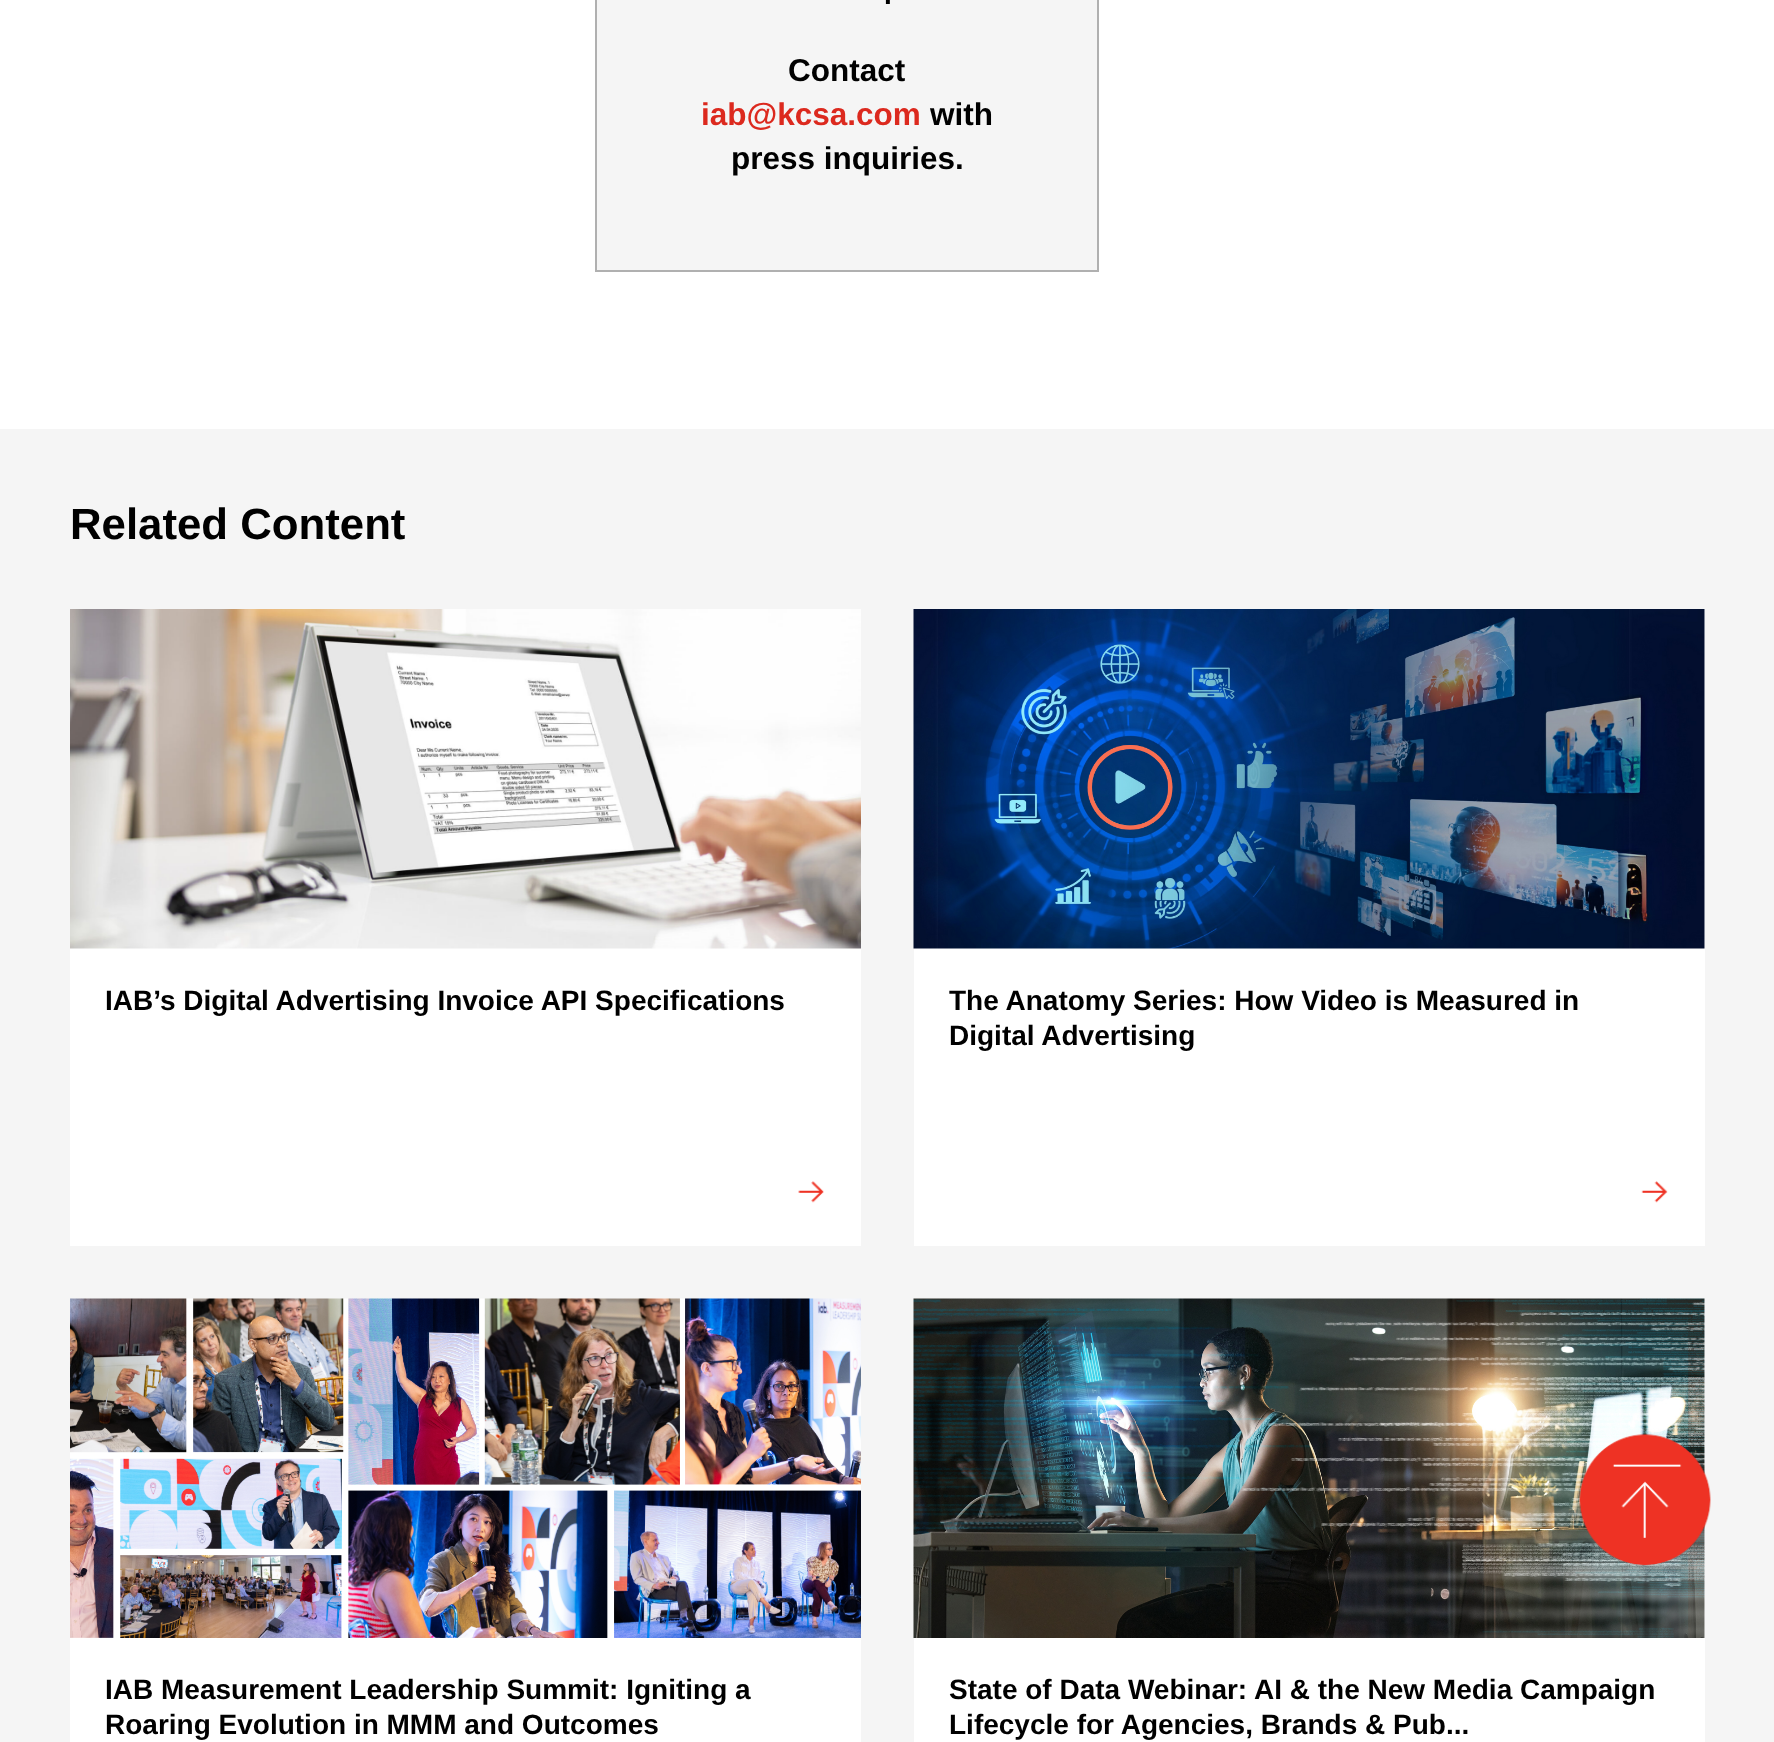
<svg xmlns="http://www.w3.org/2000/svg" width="1774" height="1742">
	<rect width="100%" height="100%" fill="#FFFFFF" />
	<rect x="597" y="0" width="500" height="270" fill="#F5F5F5" />
	<rect x="1097" y="0" width="2" height="271" fill="#B0B0B0" />
	<rect x="595" y="270" width="504" height="2" fill="#B0B0B0" />
	<rect x="595" y="0" width="2" height="271" fill="#B0B0B0" />
	<text x="884" y="4" font-family="Liberation Sans" font-size="28" font-weight="700" fill="#000000">.</text>
	<text x="788" y="81" font-family="Liberation Sans" font-size="31.5" font-weight="700" fill="#000000">Contact</text>
	<text x="701" y="125" font-family="Liberation Sans" font-size="31.5" font-weight="700" fill="#DC291E">iab@kcsa.com</text>
	<g font-family="Liberation Sans" font-size="31.5" font-weight="700" fill="#000000">
		<text x="930" y="125">with</text>
		<text x="731" y="169">press inquiries.</text>
	</g>
	<rect x="0" y="429" width="1774" height="1313" fill="#F5F5F5" />
	<text x="70" y="539" font-family="Liberation Sans" font-size="43.75" font-weight="700" fill="#000000">Related Content</text>
	<rect x="70" y="948" width="791" height="298" fill="#FFFFFF" />
	<image x="70" y="609" width="791" height="340" href="assets/img1.png" />
	<text x="105" y="1010" font-family="Liberation Sans" font-size="28" font-weight="700" fill="#000000">IAB’s Digital Advertising Invoice API Specifications</text>
	<image x="798" y="1181" width="26" height="22" href="assets/img2.png" />
	<rect x="914" y="609" width="791" height="637" fill="#FFFFFF" />
	<image x="913" y="609" width="792" height="340" href="assets/img3.png" />
	<g font-family="Liberation Sans" font-size="28" font-weight="700" fill="#000000">
		<text x="949" y="1010">The Anatomy Series: How Video is Measured in</text>
		<text x="949" y="1045">Digital Advertising</text>
	</g>
	<image x="1641" y="1181" width="27" height="22" href="assets/img4.png" />
	<rect x="70" y="1638" width="791" height="104" fill="#FFFFFF" />
	<image x="70" y="1298" width="791" height="340" href="assets/img5.png" />
	<g font-family="Liberation Sans" font-size="28" font-weight="700" fill="#000000">
		<text x="105" y="1699">IAB Measurement Leadership Summit: Igniting a</text>
		<text x="105" y="1734">Roaring Evolution in MMM and Outcomes</text>
	</g>
	<rect x="914" y="1299" width="791" height="443" fill="#FFFFFF" />
	<image x="913" y="1298" width="792" height="340" href="assets/img6.png" />
	<g font-family="Liberation Sans" font-size="28" font-weight="700" fill="#000000">
		<text x="949" y="1699">State of Data Webinar: AI &amp; the New Media Campaign</text>
		<text x="949" y="1734">Lifecycle for Agencies, Brands &amp; Pub...</text>
	</g>
	<image x="1579" y="1434" width="132" height="132" href="assets/img7.png" />
</svg>
